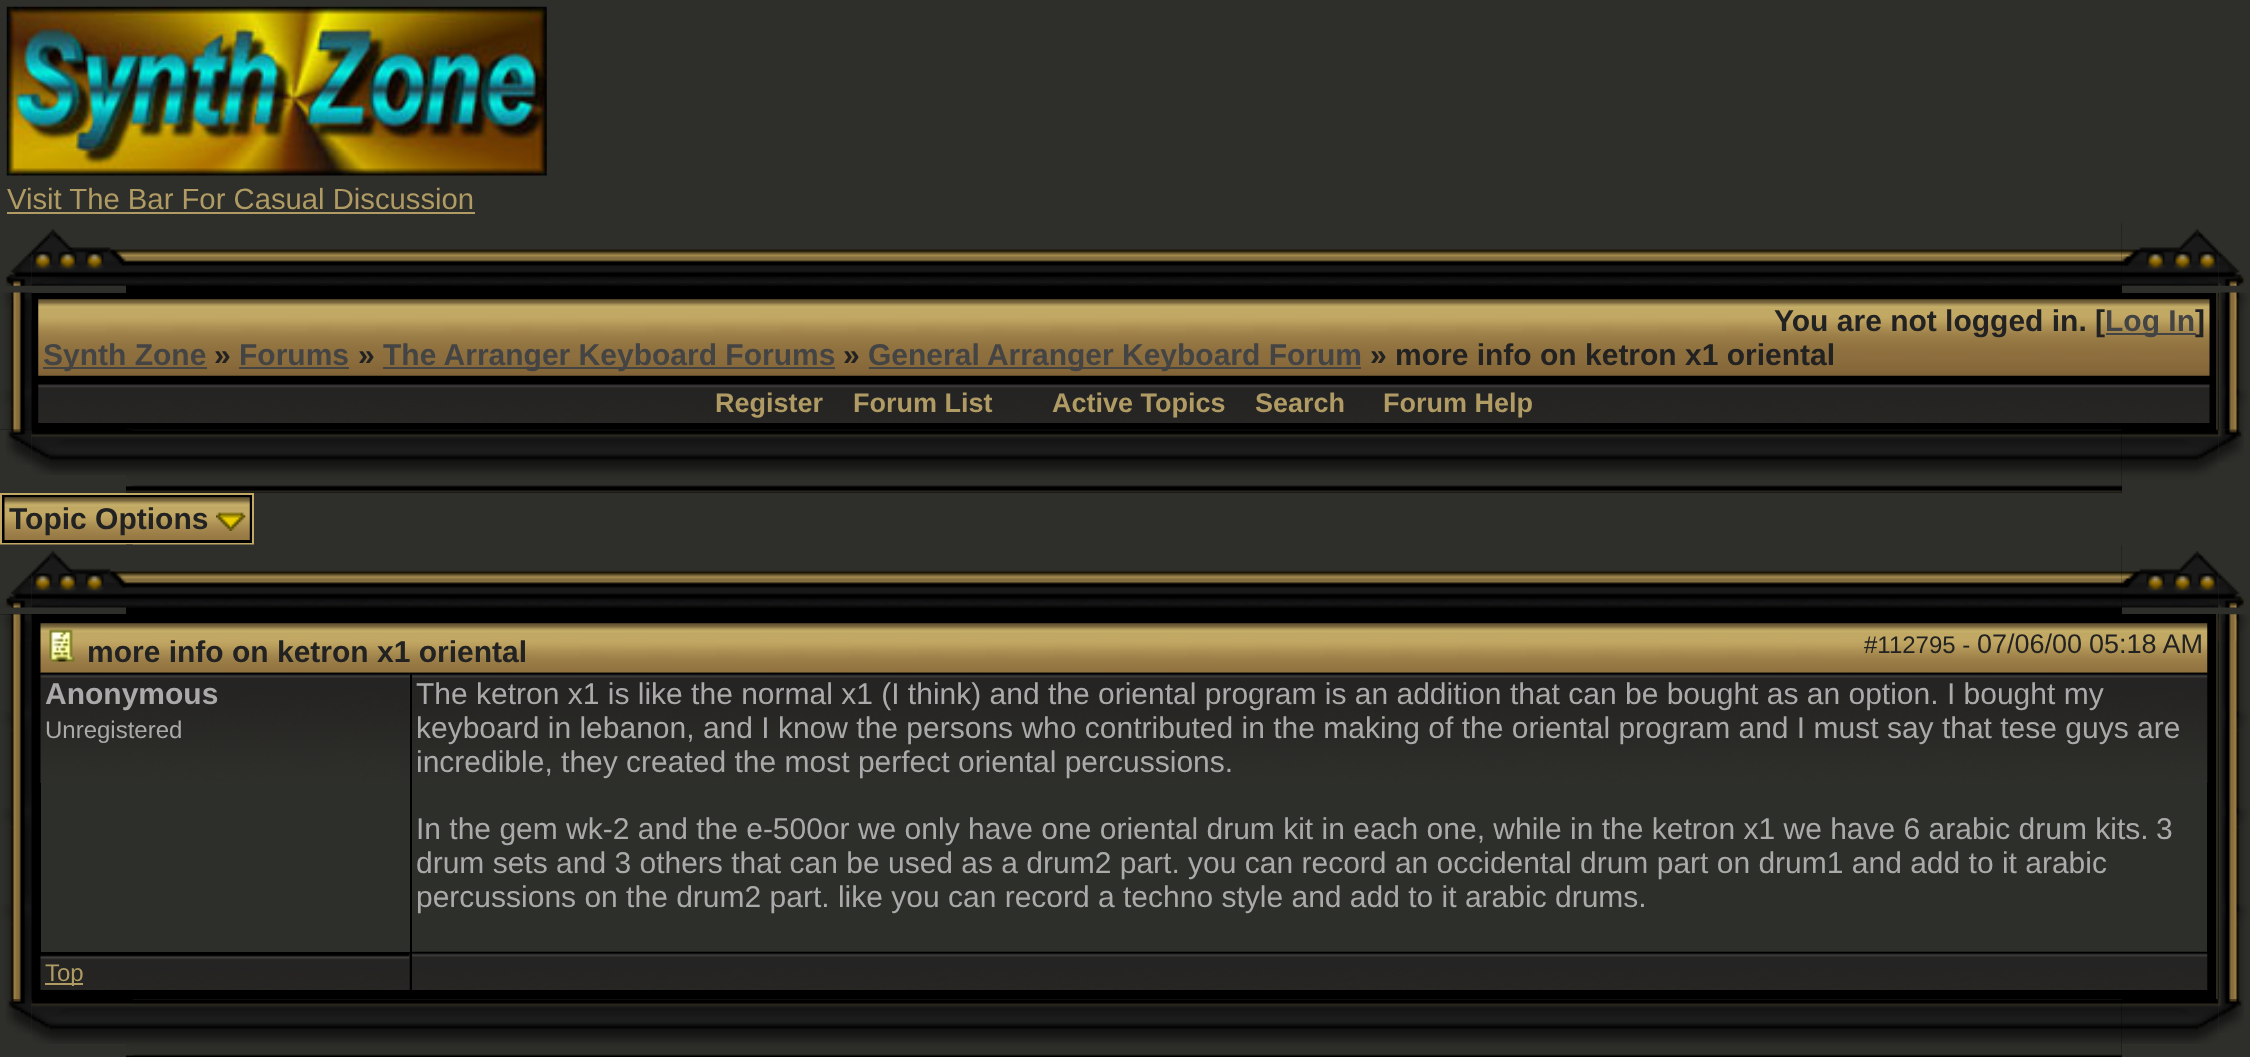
<svg xmlns="http://www.w3.org/2000/svg" width="2250" height="1057">
	<rect width="100%" height="100%" fill="#2E2F2B" />
	<image x="6" y="6" width="541" height="170" href="assets/img1.png" />
	<text x="7" y="209" font-family="Liberation Sans" font-size="29.25" fill="#AF9B63">Visit The Bar For Casual Discussion</text>
	<rect x="7" y="212" width="468" height="2" fill="#AF9B63" />
	<image x="6" y="251" width="26" height="35" href="assets/img2.png" />
	<image x="31" y="229" width="95" height="57" href="assets/img3.png" />
	<rect x="126" y="223" width="1996" height="70" fill="#000000" />
	<image x="126" y="223" width="1996" height="63" href="assets/img4.png" />
	<image x="2121" y="229" width="98" height="57" href="assets/img5.png" />
	<image x="2218" y="250" width="26" height="36" href="assets/img6.png" />
	<rect x="0" y="293" width="2219" height="137" fill="#000000" />
	<image x="0" y="292" width="32" height="138" href="assets/img7.png" />
	<image x="10" y="297" width="22" height="23" href="assets/img8.png" />
	<image x="2218" y="292" width="32" height="138" href="assets/img9.png" />
	<image x="2218" y="297" width="21" height="23" href="assets/img10.png" />
	<rect x="2216" y="293" width="2" height="137" fill="#2C291F" />
	<image x="38" y="299" width="2172" height="77" href="assets/img11.png" />
	<text x="1774" y="331" font-family="Liberation Sans" font-size="30" font-weight="700" fill="#222222">You are not logged in. [</text>
	<rect x="2106" y="333" width="90" height="2" fill="#444444" />
	<text x="2105" y="331" font-family="Liberation Sans" font-size="30" font-weight="700" fill="#444444">Log In</text>
	<text x="2195" y="331" font-family="Liberation Sans" font-size="30" font-weight="700" fill="#222222">]</text>
	<rect x="43" y="367" width="164" height="2" fill="#444444" />
	<text x="43" y="365" font-family="Liberation Sans" font-size="30" font-weight="700" fill="#444444">Synth Zone</text>
	<text x="214" y="365" font-family="Liberation Sans" font-size="30" font-weight="700" fill="#222222">»</text>
	<text x="239" y="365" font-family="Liberation Sans" font-size="30" font-weight="700" fill="#444444">Forums</text>
	<rect x="239" y="367" width="110" height="2" fill="#444444" />
	<text x="358" y="365" font-family="Liberation Sans" font-size="30" font-weight="700" fill="#222222">»</text>
	<rect x="383" y="367" width="452" height="2" fill="#444444" />
	<text x="383" y="365" font-family="Liberation Sans" font-size="30" font-weight="700" fill="#444444">The Arranger Keyboard Forums</text>
	<text x="843" y="365" font-family="Liberation Sans" font-size="30" font-weight="700" fill="#222222">»</text>
	<rect x="869" y="367" width="492" height="2" fill="#444444" />
	<text x="868" y="365" font-family="Liberation Sans" font-size="30" font-weight="700" fill="#444444">General Arranger Keyboard Forum</text>
	<text x="1370" y="365" font-family="Liberation Sans" font-size="30" font-weight="700" fill="#222222">» more info on ketron x1 oriental</text>
	<image x="38" y="384" width="2172" height="39" href="assets/img12.png" />
	<g font-family="Liberation Sans" font-size="27" font-weight="700" fill="#AF9B63">
		<text x="715" y="412">Register</text>
		<text x="853" y="412">Forum List</text>
		<text x="1052" y="412">Active Topics</text>
		<text x="1255" y="412">Search</text>
		<text x="1383" y="412">Forum Help</text>
	</g>
	<image x="6" y="429" width="26" height="36" href="assets/img13.png" />
	<image x="31" y="430" width="95" height="45" href="assets/img14.png" />
	<rect x="126" y="430" width="1996" height="63" fill="#000000" />
	<image x="126" y="429" width="1996" height="64" href="assets/img15.png" />
	<image x="126" y="430" width="7" height="56" href="assets/img16.png" />
	<image x="2121" y="429" width="98" height="57" href="assets/img17.png" />
	<image x="2218" y="429" width="26" height="34" href="assets/img18.png" />
	<rect x="1" y="494" width="252" height="50" fill="#000000" stroke="#C1A864" stroke-width="2" />
	<image x="4" y="497" width="246" height="43" href="assets/img19.png" />
	<text x="9" y="529" font-family="Liberation Sans" font-size="30" font-weight="700" fill="#222222">Topic Options</text>
	<image x="216" y="512" width="30" height="19" href="assets/img20.png" />
	<image x="0" y="544" width="32" height="64" href="assets/img21.png" />
	<image x="31" y="544" width="95" height="64" href="assets/img22.png" />
	<rect x="126" y="545" width="1996" height="69" fill="#000000" />
	<image x="126" y="544" width="1996" height="64" href="assets/img23.png" />
	<image x="126" y="544" width="7" height="1" href="assets/img24.png" />
	<image x="2121" y="551" width="98" height="57" href="assets/img25.png" />
	<image x="2218" y="571" width="26" height="37" href="assets/img26.png" />
	<rect x="0" y="614" width="2219" height="385" fill="#000000" />
	<image x="0" y="614" width="32" height="385" href="assets/img27.png" />
	<image x="12" y="619" width="20" height="22" href="assets/img28.png" />
	<image x="2218" y="614" width="32" height="385" href="assets/img29.png" />
	<image x="2218" y="619" width="21" height="22" href="assets/img30.png" />
	<rect x="2216" y="614" width="2" height="385" fill="#2C291F" />
	<image x="40" y="623" width="2168" height="50" href="assets/img31.png" />
	<image x="49" y="629" width="26" height="33" href="assets/img32.png" />
	<text x="87" y="662" font-family="Liberation Sans" font-size="30" font-weight="700" fill="#222222">more info on ketron x1 oriental</text>
	<text x="1864" y="653" font-family="Liberation Sans" font-size="24" fill="#222222">#112795 -</text>
	<g font-family="Liberation Sans" font-size="27" fill="#222222">
		<text x="1977" y="653">07/06/00</text>
		<text x="2089" y="653">05:18 AM</text>
	</g>
	<rect x="41" y="673" width="369" height="279" fill="#2D2F2B" />
	<image x="40" y="672" width="370" height="111" href="assets/img33.png" />
	<text x="45" y="704" font-family="Liberation Sans" font-size="30" font-weight="700" fill="#AAAAAA">Anonymous</text>
	<text x="45" y="738" font-family="Liberation Sans" font-size="24" fill="#AAAAAA">Unregistered</text>
	<rect x="412" y="783" width="1795" height="169" fill="#2D2F2B" />
	<image x="409" y="672" width="1799" height="111" href="assets/img34.png" />
	<rect x="410" y="673" width="2" height="110" fill="#000000" />
	<g font-family="Liberation Sans" font-size="30" fill="#AAAAAA">
		<text x="416" y="704">The ketron x1 is like the normal x1 (I think) and the oriental program is an addition that can be bought as an option. I bought my</text>
		<text x="416" y="738">keyboard in lebanon, and I know the persons who contributed in the making of the oriental program and I must say that tese guys are</text>
		<text x="416" y="772">incredible, they created the most perfect oriental percussions.</text>
		<text x="416" y="839">In the gem wk-2 and the e-500or we only have one oriental drum kit in each one, while in the ketron x1 we have 6 arabic drum kits.</text>
		<text x="2156" y="839">3</text>
		<text x="416" y="873">drum sets and 3 others that can be used as a drum2 part. you can record an occidental drum part on drum1 and add to it arabic</text>
		<text x="416" y="907">percussions on the drum2 part. like you can record a techno style and add to it arabic drums.</text>
	</g>
	<image x="40" y="954" width="370" height="36" href="assets/img35.png" />
	<rect x="45" y="983" width="38" height="2" fill="#AF9B63" />
	<text x="45" y="981" font-family="Liberation Sans" font-size="24" fill="#AF9B63">Top</text>
	<image x="409" y="951" width="1799" height="39" href="assets/img36.png" />
	<rect x="410" y="952" width="2" height="38" fill="#000000" />
	<image x="6" y="999" width="26" height="35" href="assets/img37.png" />
	<image x="31" y="999" width="95" height="45" href="assets/img38.png" />
	<rect x="126" y="999" width="1996" height="58" fill="#000000" />
	<image x="126" y="999" width="1996" height="57" href="assets/img39.png" />
	<image x="126" y="999" width="7" height="57" href="assets/img40.png" />
	<image x="2122" y="999" width="97" height="45" href="assets/img41.png" />
	<image x="2218" y="999" width="26" height="34" href="assets/img42.png" />
</svg>
